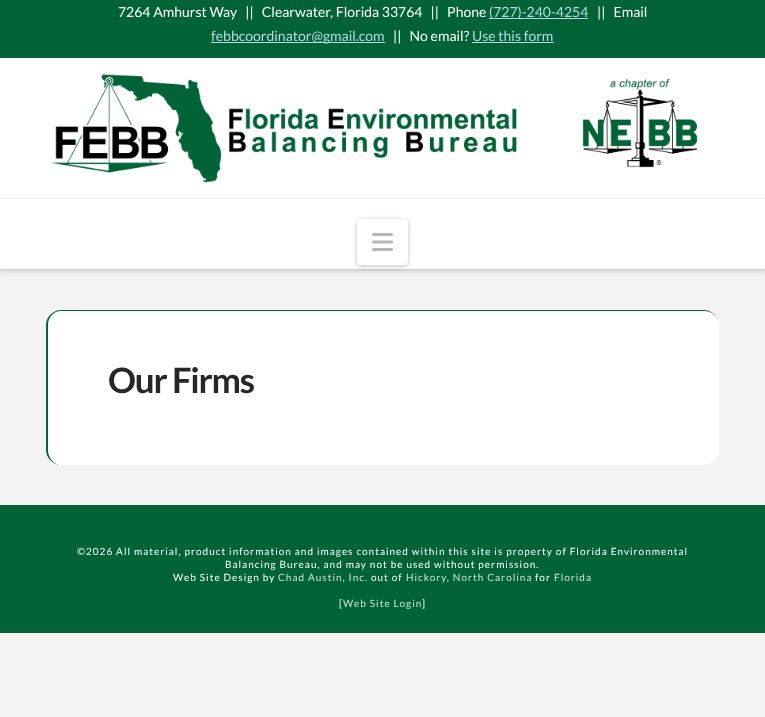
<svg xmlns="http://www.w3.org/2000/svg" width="765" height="717">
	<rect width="100%" height="100%" fill="#F3F3F3" />
	<rect x="0" y="0" width="765" height="58" fill="#016336" />
	<text x="118" y="17" font-family="Lato" font-size="14" fill="#FFFFFF" xml:space="preserve">7264 Amhurst Way   ||   Clearwater, Florida 33764   ||   Phone</text>
	<rect x="489" y="18" width="99" height="1" fill="#B9D7E5" />
	<text x="489" y="17" font-family="Lato" font-size="14" fill="#B9D7E5">(727)-240-4254</text>
	<text x="597" y="17" font-family="Lato" font-size="14" fill="#FFFFFF" xml:space="preserve">||   Email</text>
	<rect x="211" y="42" width="174" height="1" fill="#B9D7E5" />
	<text x="211" y="41" font-family="Lato" font-size="14" fill="#B9D7E5">febbcoordinator@gmail.com</text>
	<text x="393" y="41" font-family="Lato" font-size="14" fill="#FFFFFF" xml:space="preserve">||   No email?</text>
	<text x="472" y="41" font-family="Lato" font-size="14" fill="#B9D7E5">Use this form</text>
	<rect x="472" y="42" width="82" height="1" fill="#B9D7E5" />
	<rect x="0" y="58" width="765" height="140" fill="#FFFFFF" />
	<image x="51" y="74" width="647" height="109" href="assets/img1.png" />
	<rect x="0" y="201" width="765" height="71" fill="#000000" fill-opacity="0.13" filter="blur(2.5px)" />
	<rect x="0" y="199" width="765" height="70" fill="#FFFFFF" />
	<rect x="0" y="269" width="765" height="1" fill="#CCCCCC" />
	<rect x="357" y="220" width="51" height="46" rx="4" fill="#000000" fill-opacity="0.25" filter="blur(2.5px)" />
	<rect x="357" y="219" width="51" height="46" rx="4" fill="#FFFFFF" />
	<image x="372" y="233" width="21" height="18" href="assets/img2.png" />
	<rect x="46" y="310" width="673" height="155" rx="15" fill="#FFFFFF" />
	<path d="M61 310H704C712 310 719 317 719 325V450C719 458 712 465 704 465H61C53 465 46 458 46 450V325C46 317 53 310 61 310ZM61 311H704C712 311 719 317 719 325V450C719 458 712 465 704 465H61C54 465 48 458 48 450V325C48 317 54 311 61 311Z" fill="#016336" fill-rule="evenodd" />
	<text x="108" y="393" font-family="Lato" font-size="35" font-weight="700" letter-spacing="-1.25" fill="#272727">Our Firms</text>
	<rect x="0" y="505" width="765" height="128" fill="#016336" />
	<g font-family="Lato" font-size="10" letter-spacing="1" fill="#FFFFFF">
		<text x="77" y="555">©2026 All material, product information and images contained within this site is property of Florida Environmental</text>
		<text x="225" y="568">Balancing Bureau, and may not be used without permission.</text>
		<text x="173" y="581">Web Site Design by</text>
	</g>
	<text x="278" y="581" font-family="Lato" font-size="10" letter-spacing="1" fill="#CCE6D3">Chad Austin, Inc.</text>
	<text x="371" y="581" font-family="Lato" font-size="10" letter-spacing="1" fill="#FFFFFF">out of</text>
	<text x="406" y="581" font-family="Lato" font-size="10" letter-spacing="1" fill="#CCE6D3">Hickory, North Carolina</text>
	<text x="535" y="581" font-family="Lato" font-size="10" letter-spacing="1" fill="#FFFFFF">for</text>
	<text x="554" y="581" font-family="Lato" font-size="10" letter-spacing="1" fill="#CCE6D3">Florida</text>
	<text x="339" y="607" font-family="Lato" font-size="10" letter-spacing="1" fill="#FFFFFF">[</text>
	<text x="343" y="607" font-family="Lato" font-size="10" letter-spacing="1" fill="#CCE6D3">Web Site Login</text>
	<text x="422" y="607" font-family="Lato" font-size="10" letter-spacing="1" fill="#FFFFFF">]</text>
</svg>
